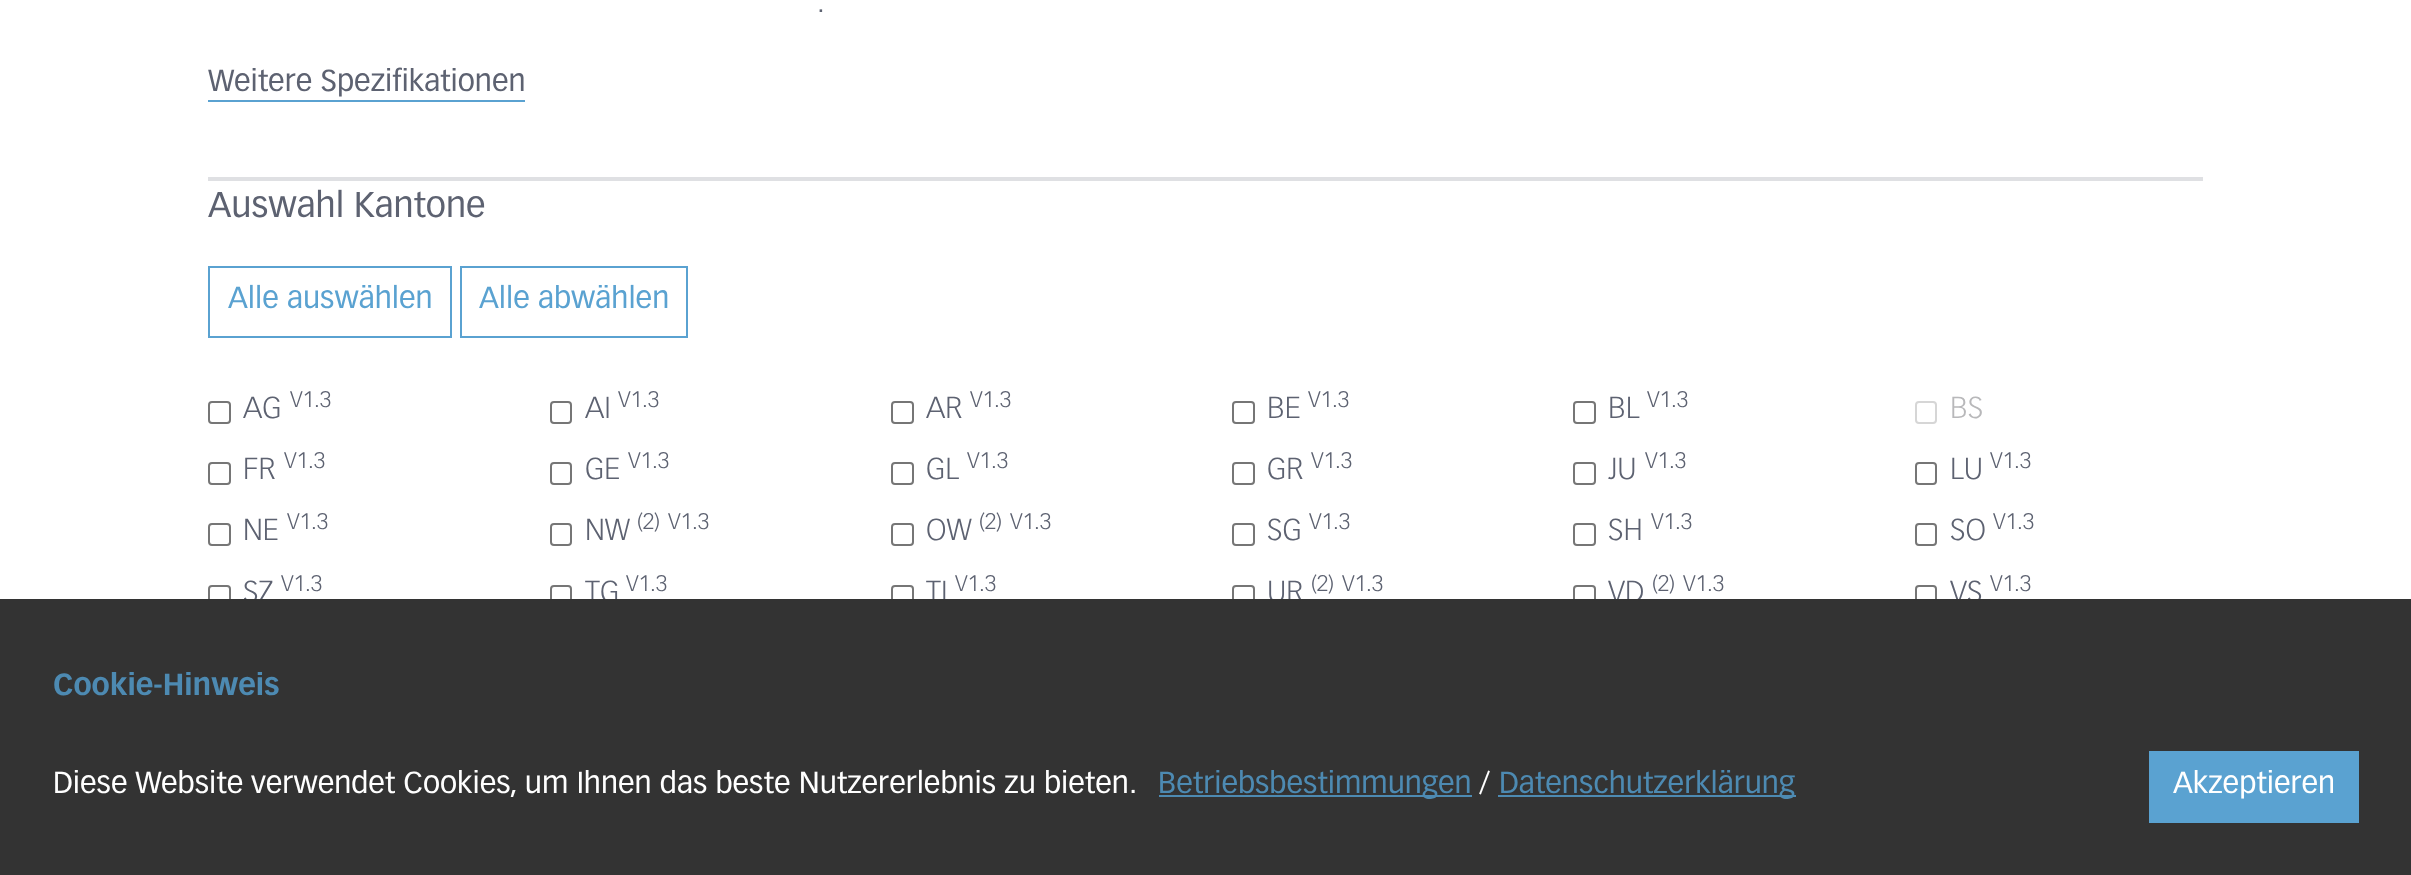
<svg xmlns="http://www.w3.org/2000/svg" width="2411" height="875">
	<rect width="100%" height="100%" fill="#FFFFFF" />
	<text x="817" y="12" font-family="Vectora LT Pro" font-size="29.75" font-weight="300" fill="#5D6271">.</text>
	<text x="208" y="91" font-family="Vectora LT Pro" font-size="29.75" fill="#5D6271">Weitere Spezifikationen</text>
	<rect x="208" y="100" width="317" height="2" fill="#5AA2D1" />
	<rect x="208" y="177" width="1995" height="4" fill="#DFE0E3" />
	<text x="208" y="217" font-family="Vectora LT Pro" font-size="35" fill="#5D6271">Auswahl Kantone</text>
	<rect x="209" y="267" width="242" height="70" fill="none" stroke="#5AA2D1" stroke-width="2" />
	<text x="228" y="308" font-family="Vectora LT Pro" font-size="29.75" fill="#5AA2D1">Alle auswählen</text>
	<rect x="461" y="267" width="226" height="70" fill="none" stroke="#5AA2D1" stroke-width="2" />
	<text x="479" y="308" font-family="Vectora LT Pro" font-size="29.75" fill="#5AA2D1">Alle abwählen</text>
	<rect x="209" y="402" width="21" height="21" rx="3" fill="none" stroke="#767676" stroke-width="2" />
	<text x="243" y="418" font-family="Vectora LT Pro" font-size="29.75" font-weight="300" fill="#5D6271">AG</text>
	<text x="290" y="407" font-family="Vectora LT Pro" font-size="22" font-weight="300" fill="#5D6271">V1.3</text>
	<rect x="551" y="402" width="20" height="21" rx="3" fill="none" stroke="#767676" stroke-width="2" />
	<text x="585" y="418" font-family="Vectora LT Pro" font-size="29.75" font-weight="300" fill="#5D6271">AI</text>
	<text x="618" y="407" font-family="Vectora LT Pro" font-size="22" font-weight="300" fill="#5D6271">V1.3</text>
	<rect x="892" y="402" width="21" height="21" rx="3" fill="none" stroke="#767676" stroke-width="2" />
	<text x="926" y="418" font-family="Vectora LT Pro" font-size="29.75" font-weight="300" fill="#5D6271">AR</text>
	<text x="970" y="407" font-family="Vectora LT Pro" font-size="22" font-weight="300" fill="#5D6271">V1.3</text>
	<rect x="1233" y="402" width="21" height="21" rx="3" fill="none" stroke="#767676" stroke-width="2" />
	<text x="1267" y="418" font-family="Vectora LT Pro" font-size="29.75" font-weight="300" fill="#5D6271">BE</text>
	<text x="1308" y="407" font-family="Vectora LT Pro" font-size="22" font-weight="300" fill="#5D6271">V1.3</text>
	<rect x="1574" y="402" width="21" height="21" rx="3" fill="none" stroke="#767676" stroke-width="2" />
	<text x="1608" y="418" font-family="Vectora LT Pro" font-size="29.75" font-weight="300" fill="#5D6271">BL</text>
	<text x="1647" y="407" font-family="Vectora LT Pro" font-size="22" font-weight="300" fill="#5D6271">V1.3</text>
	<rect x="1916" y="402" width="20" height="21" rx="3" fill="none" stroke="#D6D6D6" stroke-width="2" />
	<text x="1950" y="418" font-family="Vectora LT Pro" font-size="29.75" font-weight="300" fill="#B8B8BA">BS</text>
	<rect x="209" y="463" width="21" height="21" rx="3" fill="none" stroke="#767676" stroke-width="2" />
	<text x="243" y="479" font-family="Vectora LT Pro" font-size="29.75" font-weight="300" fill="#5D6271">FR</text>
	<text x="284" y="468" font-family="Vectora LT Pro" font-size="22" font-weight="300" fill="#5D6271">V1.3</text>
	<rect x="551" y="463" width="20" height="21" rx="3" fill="none" stroke="#767676" stroke-width="2" />
	<text x="585" y="479" font-family="Vectora LT Pro" font-size="29.75" font-weight="300" fill="#5D6271">GE</text>
	<text x="628" y="468" font-family="Vectora LT Pro" font-size="22" font-weight="300" fill="#5D6271">V1.3</text>
	<rect x="892" y="463" width="21" height="21" rx="3" fill="none" stroke="#767676" stroke-width="2" />
	<text x="926" y="479" font-family="Vectora LT Pro" font-size="29.75" font-weight="300" fill="#5D6271">GL</text>
	<text x="967" y="468" font-family="Vectora LT Pro" font-size="22" font-weight="300" fill="#5D6271">V1.3</text>
	<rect x="1233" y="463" width="21" height="21" rx="3" fill="none" stroke="#767676" stroke-width="2" />
	<text x="1267" y="479" font-family="Vectora LT Pro" font-size="29.75" font-weight="300" fill="#5D6271">GR</text>
	<text x="1311" y="468" font-family="Vectora LT Pro" font-size="22" font-weight="300" fill="#5D6271">V1.3</text>
	<rect x="1574" y="463" width="21" height="21" rx="3" fill="none" stroke="#767676" stroke-width="2" />
	<text x="1608" y="479" font-family="Vectora LT Pro" font-size="29.75" font-weight="300" fill="#5D6271">JU</text>
	<text x="1645" y="468" font-family="Vectora LT Pro" font-size="22" font-weight="300" fill="#5D6271">V1.3</text>
	<rect x="1916" y="463" width="20" height="21" rx="3" fill="none" stroke="#767676" stroke-width="2" />
	<text x="1950" y="479" font-family="Vectora LT Pro" font-size="29.75" font-weight="300" fill="#5D6271">LU</text>
	<text x="1990" y="468" font-family="Vectora LT Pro" font-size="22" font-weight="300" fill="#5D6271">V1.3</text>
	<rect x="209" y="524" width="21" height="21" rx="3" fill="none" stroke="#767676" stroke-width="2" />
	<text x="243" y="540" font-family="Vectora LT Pro" font-size="29.75" font-weight="300" fill="#5D6271">NE</text>
	<text x="287" y="529" font-family="Vectora LT Pro" font-size="22" font-weight="300" fill="#5D6271">V1.3</text>
	<rect x="551" y="524" width="20" height="21" rx="3" fill="none" stroke="#767676" stroke-width="2" />
	<text x="585" y="540" font-family="Vectora LT Pro" font-size="29.75" font-weight="300" fill="#5D6271">NW</text>
	<g font-family="Vectora LT Pro" font-size="22" font-weight="300" fill="#5D6271">
		<text x="637" y="529">(2)</text>
		<text x="668" y="529">V1.3</text>
	</g>
	<rect x="892" y="524" width="21" height="21" rx="3" fill="none" stroke="#767676" stroke-width="2" />
	<text x="926" y="540" font-family="Vectora LT Pro" font-size="29.75" font-weight="300" fill="#5D6271">OW</text>
	<g font-family="Vectora LT Pro" font-size="22" font-weight="300" fill="#5D6271">
		<text x="979" y="529">(2)</text>
		<text x="1010" y="529">V1.3</text>
	</g>
	<rect x="1233" y="524" width="21" height="21" rx="3" fill="none" stroke="#767676" stroke-width="2" />
	<text x="1267" y="540" font-family="Vectora LT Pro" font-size="29.75" font-weight="300" fill="#5D6271">SG</text>
	<text x="1309" y="529" font-family="Vectora LT Pro" font-size="22" font-weight="300" fill="#5D6271">V1.3</text>
	<rect x="1574" y="524" width="21" height="21" rx="3" fill="none" stroke="#767676" stroke-width="2" />
	<text x="1608" y="540" font-family="Vectora LT Pro" font-size="29.75" font-weight="300" fill="#5D6271">SH</text>
	<text x="1651" y="529" font-family="Vectora LT Pro" font-size="22" font-weight="300" fill="#5D6271">V1.3</text>
	<rect x="1916" y="524" width="20" height="21" rx="3" fill="none" stroke="#767676" stroke-width="2" />
	<text x="1950" y="540" font-family="Vectora LT Pro" font-size="29.75" font-weight="300" fill="#5D6271">SO</text>
	<text x="1993" y="529" font-family="Vectora LT Pro" font-size="22" font-weight="300" fill="#5D6271">V1.3</text>
	<rect x="209" y="586" width="21" height="20" rx="3" fill="none" stroke="#767676" stroke-width="2" />
	<text x="243" y="602" font-family="Vectora LT Pro" font-size="29.75" font-weight="300" fill="#5D6271">SZ</text>
	<text x="281" y="591" font-family="Vectora LT Pro" font-size="22" font-weight="300" fill="#5D6271">V1.3</text>
	<rect x="551" y="586" width="20" height="20" rx="3" fill="none" stroke="#767676" stroke-width="2" />
	<text x="585" y="602" font-family="Vectora LT Pro" font-size="29.75" font-weight="300" fill="#5D6271">TG</text>
	<text x="626" y="591" font-family="Vectora LT Pro" font-size="22" font-weight="300" fill="#5D6271">V1.3</text>
	<rect x="892" y="586" width="21" height="20" rx="3" fill="none" stroke="#767676" stroke-width="2" />
	<text x="926" y="602" font-family="Vectora LT Pro" font-size="29.75" font-weight="300" fill="#5D6271">TI</text>
	<text x="955" y="591" font-family="Vectora LT Pro" font-size="22" font-weight="300" fill="#5D6271">V1.3</text>
	<rect x="1233" y="586" width="21" height="20" rx="3" fill="none" stroke="#767676" stroke-width="2" />
	<text x="1267" y="602" font-family="Vectora LT Pro" font-size="29.75" font-weight="300" fill="#5D6271">UR</text>
	<g font-family="Vectora LT Pro" font-size="22" font-weight="300" fill="#5D6271">
		<text x="1311" y="591">(2)</text>
		<text x="1342" y="591">V1.3</text>
	</g>
	<rect x="1574" y="586" width="21" height="20" rx="3" fill="none" stroke="#767676" stroke-width="2" />
	<text x="1608" y="602" font-family="Vectora LT Pro" font-size="29.75" font-weight="300" fill="#5D6271">VD</text>
	<g font-family="Vectora LT Pro" font-size="22" font-weight="300" fill="#5D6271">
		<text x="1652" y="591">(2)</text>
		<text x="1683" y="591">V1.3</text>
	</g>
	<rect x="1916" y="586" width="20" height="20" rx="3" fill="none" stroke="#767676" stroke-width="2" />
	<text x="1950" y="602" font-family="Vectora LT Pro" font-size="29.75" font-weight="300" fill="#5D6271">VS</text>
	<text x="1990" y="591" font-family="Vectora LT Pro" font-size="22" font-weight="300" fill="#5D6271">V1.3</text>
	<rect x="0" y="599" width="2411" height="276" fill="#333333" />
	<text x="53" y="695" font-family="Vectora LT Pro" font-size="29.75" font-weight="700" fill="#4D8AB2">Cookie-Hinweis</text>
	<text x="53" y="793" font-family="Vectora LT Pro" font-size="29.75" fill="#FFFFFF">Diese Website verwendet Cookies, um Ihnen das beste Nutzererlebnis zu bieten.</text>
	<rect x="1159" y="795" width="313" height="2" fill="#4D8AB2" />
	<text x="1158" y="793" font-family="Vectora LT Pro" font-size="29.75" fill="#4D8AB2">Betriebsbestimmungen</text>
	<text x="1479" y="793" font-family="Vectora LT Pro" font-size="29.75" fill="#FFFFFF">/</text>
	<rect x="1498" y="795" width="298" height="2" fill="#4D8AB2" />
	<text x="1499" y="793" font-family="Vectora LT Pro" font-size="29.75" fill="#4D8AB2">Datenschutzerklärung</text>
	<rect x="2149" y="751" width="210" height="72" fill="#5AA2D1" />
	<text x="2173" y="793" font-family="Vectora LT Pro" font-size="29.75" fill="#FFFFFF">Akzeptieren</text>
</svg>
